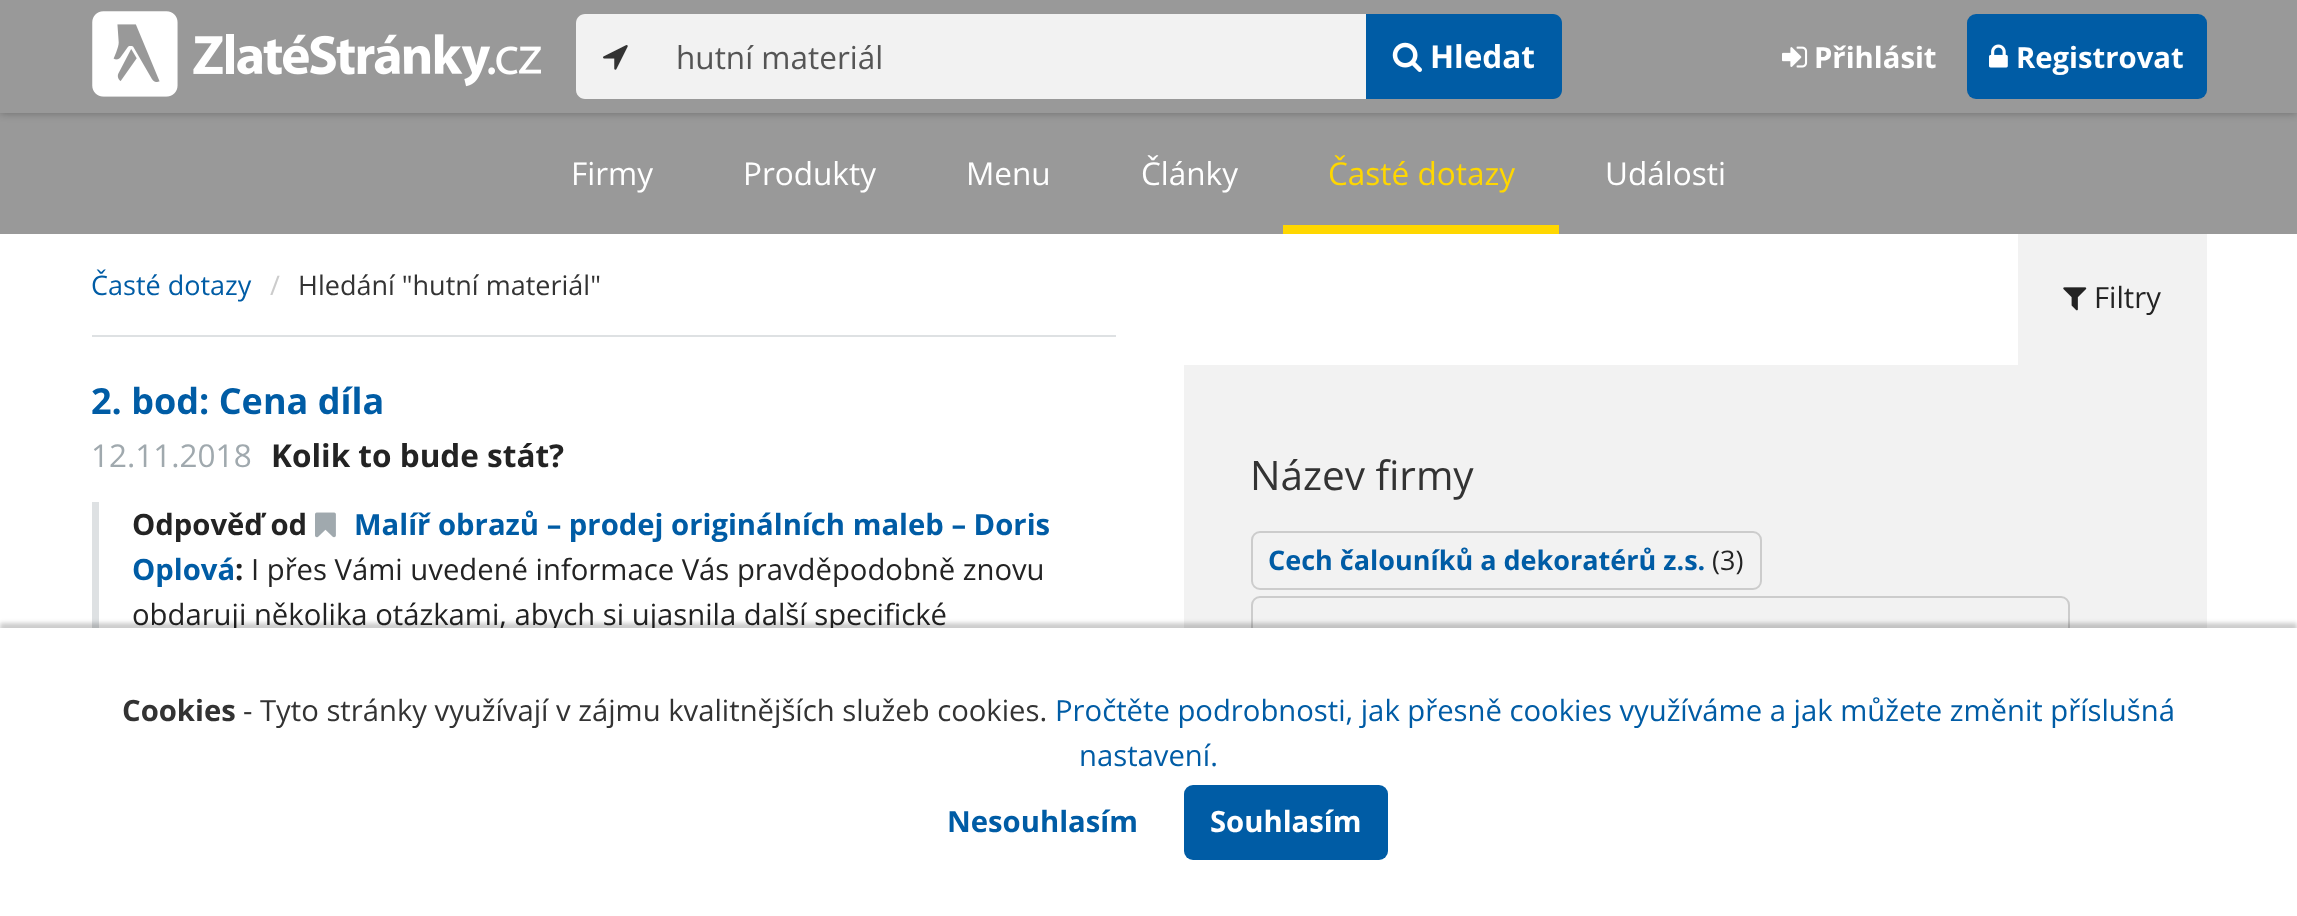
<svg xmlns="http://www.w3.org/2000/svg" width="2297" height="916">
	<defs>
		<clipPath id="clip1"><path d="M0 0H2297V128H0ZM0 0H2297V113H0Z" clip-rule="evenodd" /></clipPath>
	</defs>
	<rect width="100%" height="100%" fill="#FFFFFF" />
	<rect x="0" y="113" width="2297" height="121" fill="#999999" />
	<g clip-path="url(#clip1)">
		<rect x="0" y="0" width="2297" height="113" fill="#000000" fill-opacity="0.3" filter="blur(4.5px)" />
	</g>
	<rect x="0" y="0" width="2297" height="113" fill="#000000" fill-opacity="0.4" />
	<image x="92" y="11" width="449" height="86" href="assets/img1.png" />
	<path d="M585 14H655V99H585C580 99 576 95 576 90V23C576 18 580 14 585 14Z" fill="#F2F2F2" />
	<image x="603" y="45" width="25" height="25" href="assets/img2.png" />
	<rect x="655" y="14" width="711" height="85" fill="#F2F2F2" />
	<text x="676" y="69" font-family="Open Sans" font-size="31.5" fill="#555555">hutní materiál</text>
	<path d="M1366 14H1553C1558 14 1562 18 1562 23V90C1562 95 1558 99 1553 99H1366Z" fill="#005CA5" />
	<image x="1392" y="42" width="30" height="30" href="assets/img3.png" />
	<text x="1430" y="68" font-family="Open Sans" font-size="31.5" font-weight="700" fill="#FFFFFF">Hledat</text>
	<image x="1782" y="46" width="26" height="22" href="assets/img4.png" />
	<text x="1814" y="68" font-family="Open Sans" font-size="29.25" font-weight="700" fill="#FFFFFF">Přihlásit</text>
	<rect x="1967" y="14" width="240" height="85" rx="9" fill="#005CA5" />
	<image x="1989" y="44" width="19" height="24" href="assets/img5.png" />
	<text x="2016" y="68" font-family="Open Sans" font-size="29.25" font-weight="700" fill="#FFFFFF">Registrovat</text>
	<g font-family="Open Sans" font-size="31.5" fill="#FFFFFF">
		<text x="571" y="185">Firmy</text>
		<text x="743" y="185">Produkty</text>
		<text x="966" y="185">Menu</text>
		<text x="1141" y="185">Články</text>
	</g>
	<rect x="1283" y="225" width="276" height="9" fill="#FFD700" />
	<text x="1328" y="185" font-family="Open Sans" font-size="31.5" fill="#FFD700">Časté dotazy</text>
	<text x="1605" y="185" font-family="Open Sans" font-size="31.5" fill="#FFFFFF">Události</text>
	<rect x="92" y="335" width="1024" height="2" fill="#DEE1E3" />
	<text x="91" y="295" font-family="Open Sans" font-size="27" fill="#005CA5">Časté dotazy</text>
	<text x="270" y="295" font-family="Open Sans" font-size="27" fill="#CCCCCC">/</text>
	<text x="298" y="295" font-family="Open Sans" font-size="27" fill="#333333">Hledání "hutní materiál"</text>
	<text x="91" y="414" font-family="Open Sans" font-size="36" font-weight="700" fill="#005CA5">2. bod: Cena díla</text>
	<text x="91" y="467" font-family="Open Sans" font-size="31.5" fill="#A0A9AE">12.11.2018</text>
	<text x="271" y="467" font-family="Open Sans" font-size="31.5" font-weight="700" fill="#232323">Kolik to bude stát?</text>
	<rect x="92" y="502" width="7" height="126" fill="#DEE1E3" />
	<image x="315" y="512" width="21" height="26" href="assets/img6.png" />
	<g font-family="Open Sans" font-size="29.25" font-weight="700" fill="#005CA5">
		<text x="354" y="535">Malíř obrazů – prodej originálních maleb – Doris</text>
		<text x="132" y="580">Oplová</text>
	</g>
	<g font-family="Open Sans" font-size="29.25" font-weight="700" fill="#232323">
		<text x="132" y="535">Odpověď od</text>
		<text x="235" y="580">:</text>
	</g>
	<g font-family="Open Sans" font-size="29.25" fill="#232323">
		<text x="251" y="580">I přes Vámi uvedené informace Vás pravděpodobně znovu</text>
		<text x="132" y="625">obdaruji několika otázkami, abych si ujasnila další specifické</text>
	</g>
	<rect x="2018" y="234" width="189" height="131" fill="#F2F2F2" />
	<image x="2063" y="287" width="24" height="24" href="assets/img7.png" />
	<text x="2094" y="308" font-family="Open Sans" font-size="29.25" fill="#232323">Filtry</text>
	<rect x="1184" y="365" width="1023" height="263" fill="#F2F2F2" />
	<text x="1250" y="490" font-family="Open Sans" font-size="40.5" fill="#333333">Název firmy</text>
	<rect x="1252" y="532" width="509" height="57" rx="8" fill="none" stroke="#CCCCCC" stroke-width="2" />
	<text x="1268" y="570" font-family="Open Sans" font-size="27" font-weight="700" fill="#005CA5">Cech čalouníků a dekoratérů z.s.</text>
	<text x="1712" y="570" font-family="Open Sans" font-size="27" fill="#232323">(3)</text>
	<rect x="1252" y="597" width="817" height="57" rx="8" fill="none" stroke="#CCCCCC" stroke-width="2" />
	<rect x="0" y="623" width="2297" height="291" fill="#000000" fill-opacity="0.2" filter="blur(2px)" />
	<rect x="0" y="628" width="2297" height="288" fill="#FFFFFF" />
	<text x="122" y="721" font-family="Open Sans" font-size="29.25" font-weight="700" fill="#333333">Cookies</text>
	<text x="243" y="721" font-family="Open Sans" font-size="29.25" fill="#333333">- Tyto stránky využívají v zájmu kvalitnějších služeb cookies.</text>
	<g font-family="Open Sans" font-size="29.25" fill="#005CA5">
		<text x="1055" y="721">Pročtěte podrobnosti, jak přesně cookies využíváme a jak můžete změnit příslušná</text>
		<text x="1079" y="766">nastavení.</text>
	</g>
	<text x="947" y="832" font-family="Open Sans" font-size="29.25" font-weight="700" fill="#005CA5">Nesouhlasím</text>
	<rect x="1184" y="785" width="204" height="75" rx="9" fill="#005CA5" />
	<text x="1210" y="832" font-family="Open Sans" font-size="29.25" font-weight="700" fill="#FFFFFF">Souhlasím</text>
</svg>
